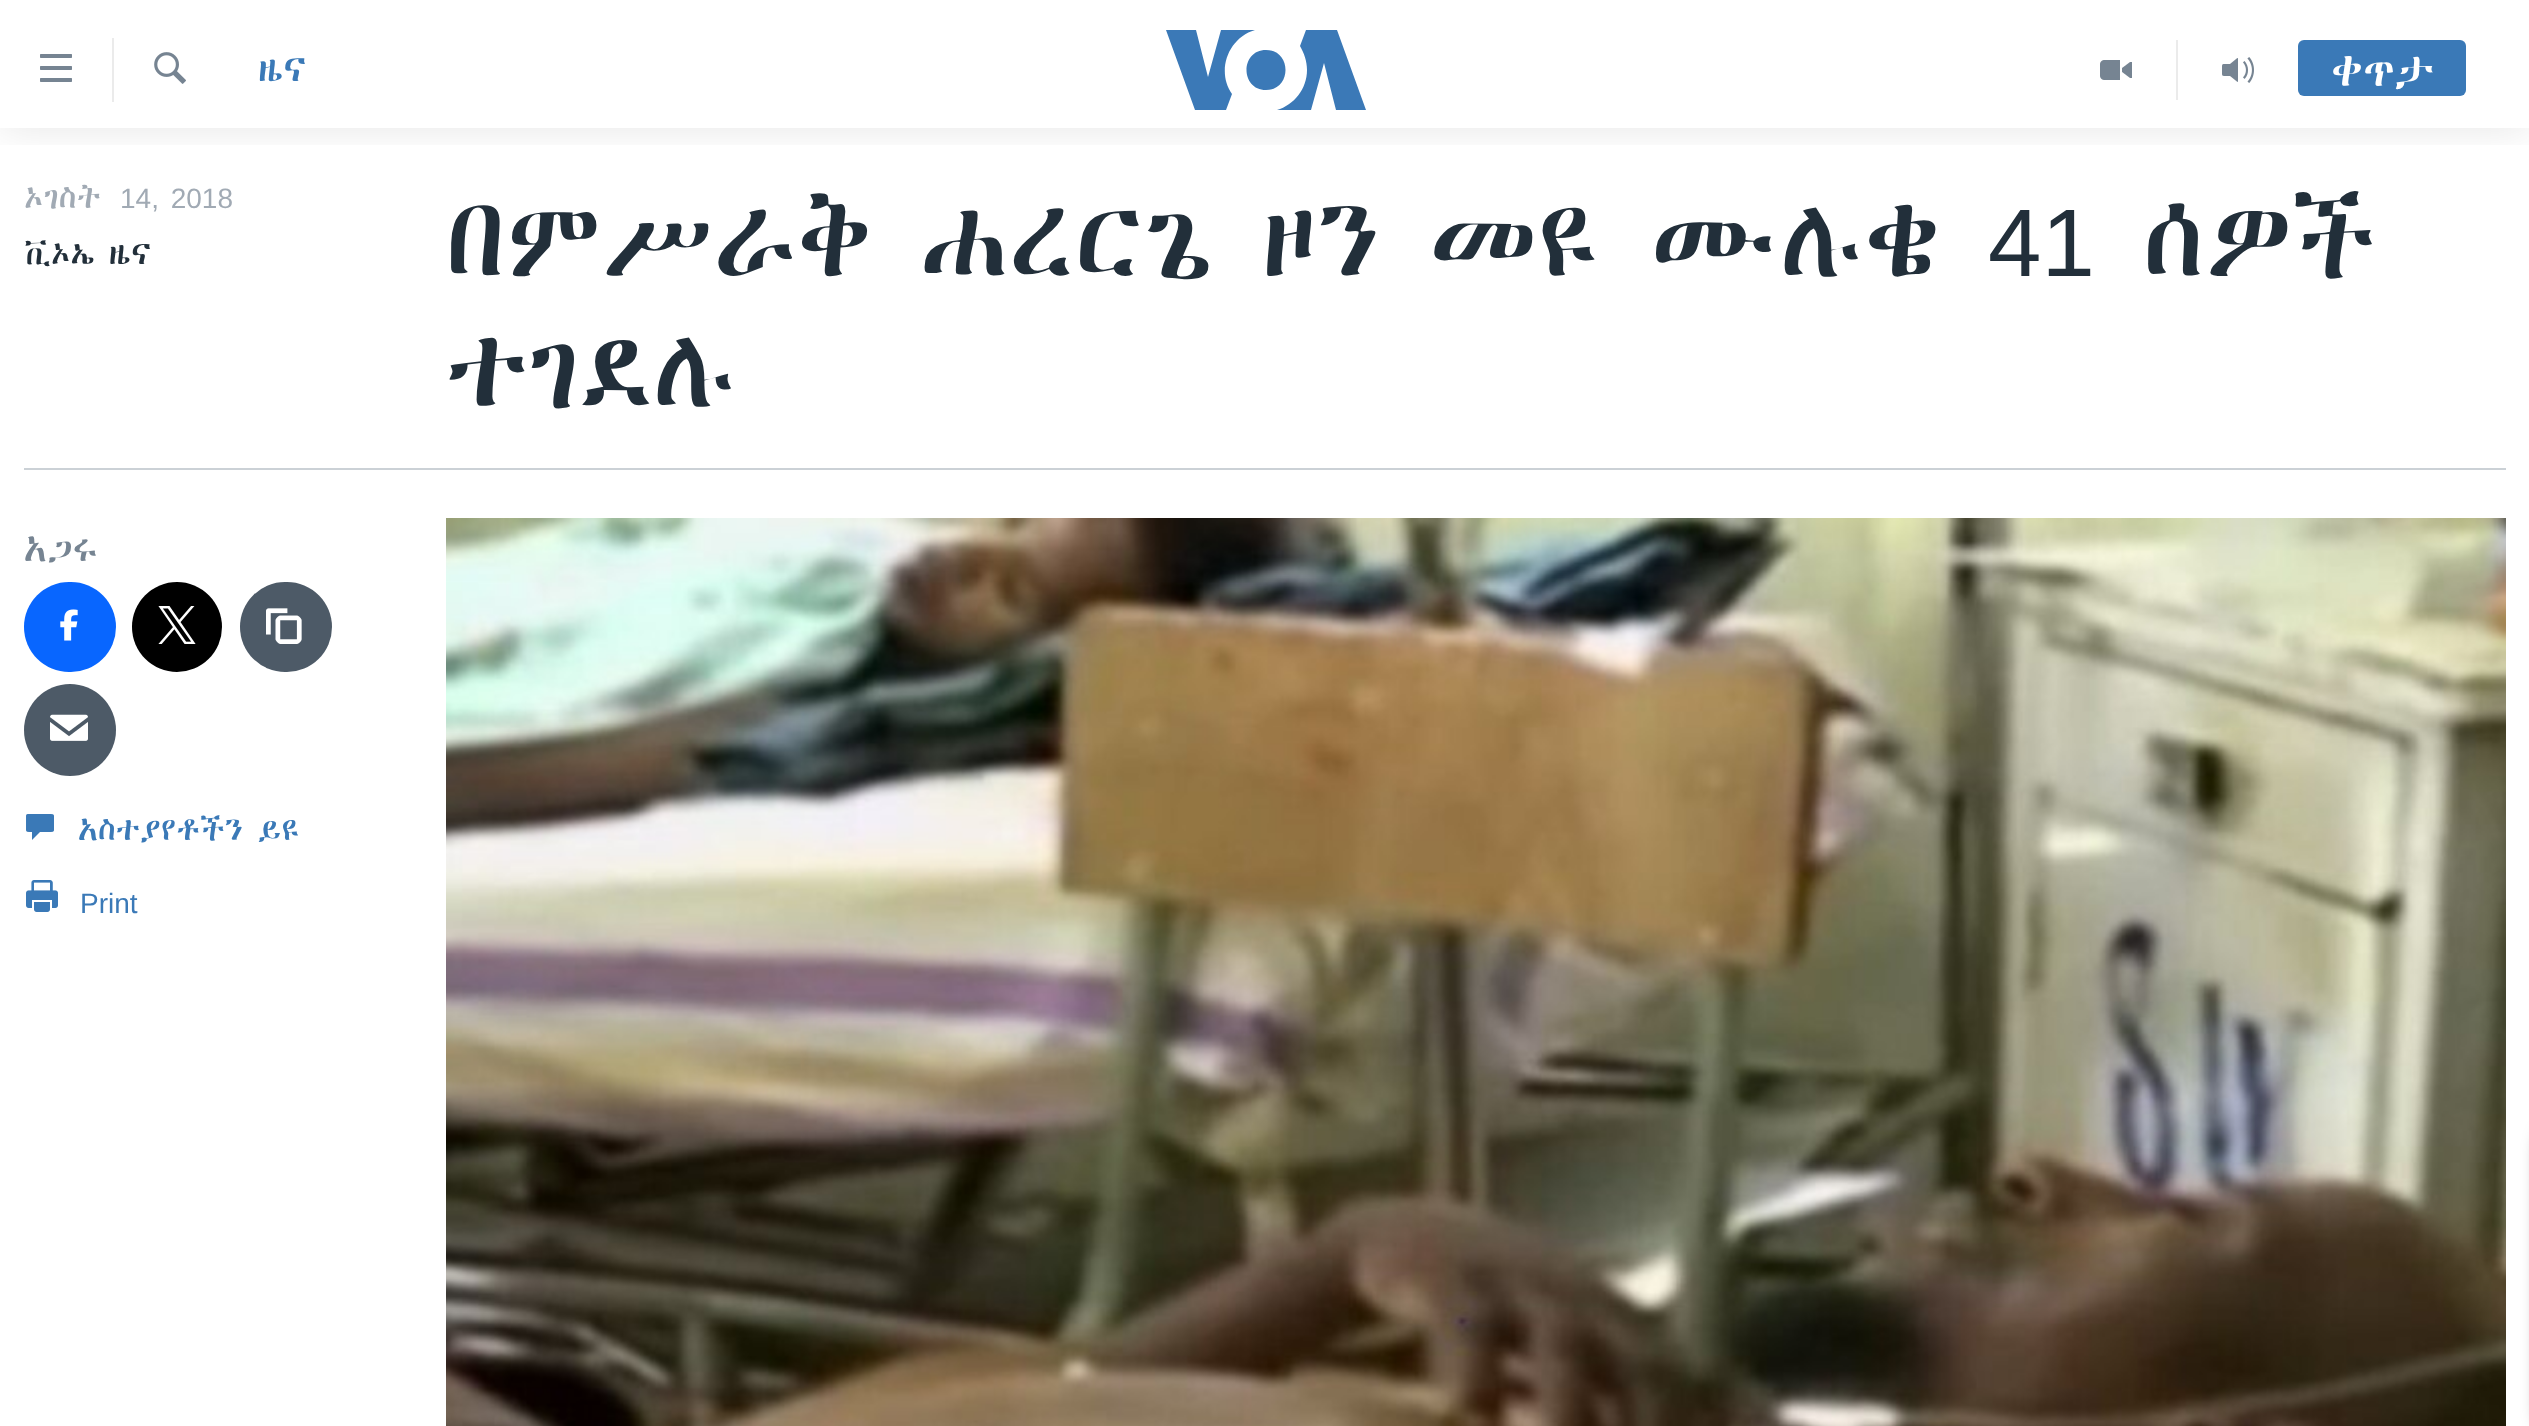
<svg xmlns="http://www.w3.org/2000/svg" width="2529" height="1426">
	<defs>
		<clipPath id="clip1"><rect x="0" y="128" width="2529" height="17" /></clipPath>
	</defs>
	<rect width="100%" height="100%" fill="#FFFFFF" />
	<g clip-path="url(#clip1)">
		<rect x="0" y="0" width="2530" height="128" fill="#000000" fill-opacity="0.1" filter="blur(20px)" />
	</g>
	<image x="40" y="54" width="32" height="28" href="assets/img1.png" />
	<rect x="112" y="38" width="2" height="64" fill="#EBEBEB" />
	<image x="154" y="52" width="32" height="32" href="assets/img2.png" />
	<text x="258" y="81" font-family="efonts" font-size="32" fill="#3A79B7">ዜና</text>
	<path d="M1232 94L1226 110H1195L1166 30H1196L1208 77L1221 30H1255C1228 38 1216 71 1232 94ZM1266 50C1240 50 1240 90 1266 90C1292 90 1292 50 1266 50ZM1307 70C1307 89 1294 105 1277 110H1311L1324 63L1336 110H1366L1337 30H1306L1300 46C1304 53 1307 61 1307 70Z" fill="#3B79B7" />
	<rect x="2176" y="40" width="2" height="60" fill="#EBEBEB" />
	<image x="2100" y="60" width="32" height="20" href="assets/img3.png" />
	<image x="2222" y="57" width="32" height="26" href="assets/img4.png" />
	<rect x="2298" y="40" width="168" height="56" rx="6" fill="#3A79B7" />
	<text x="2331" y="86" font-family="efonts" font-size="40" fill="#FFFFFF">ቀጥታ</text>
	<text x="24" y="208" font-family="efonts" font-size="28" fill="#A1AAB4">ኦገስት</text>
	<text x="120" y="208" word-spacing="4" font-family="Liberation Sans" font-size="28" fill="#A1AAB4">14, 2018</text>
	<text x="24" y="264" font-family="efonts" font-size="28" fill="#222F3A">ቪኦኤ ዜና</text>
	<text x="446" y="276" font-family="efonts" font-size="96" fill="#222F3A">በምሥራቅ ሐረርጌ ዞን መዩ ሙሉቄ</text>
	<text x="1988" y="276" font-family="Liberation Sans" font-size="96" fill="#222F3A">41</text>
	<g font-family="efonts" font-size="96" fill="#222F3A">
		<text x="2143" y="276">ሰዎች</text>
		<text x="446" y="406">ተገደሉ</text>
	</g>
	<rect x="24" y="468" width="2482" height="2" fill="#CBD1D6" />
	<text x="24" y="561" font-family="efonts" font-size="32" fill="#768492">አጋሩ</text>
	<rect x="24" y="582" width="92" height="90" rx="45" fill="#0866FF" />
	<image x="60" y="609" width="18" height="32" href="assets/img5.png" />
	<circle cx="177" cy="627" r="45" fill="#000000" />
	<image x="158" y="606" width="38" height="38" href="assets/img6.png" />
	<rect x="240" y="582" width="92" height="90" rx="45" fill="#4D5A67" />
	<image x="266" y="608" width="36" height="36" href="assets/img7.png" />
	<circle cx="70" cy="730" r="46" fill="#4D5A67" />
	<image x="50" y="714" width="38" height="27" href="assets/img8.png" />
	<image x="26" y="814" width="28" height="26" href="assets/img9.png" />
	<text x="78" y="840" font-family="efonts" font-size="28" fill="#3A79B7">አስተያየቶችን ይዩ</text>
	<image x="26" y="880" width="32" height="32" href="assets/img10.png" />
	<text x="80" y="913" font-family="Liberation Sans" font-size="28" fill="#3A79B7">Print</text>
	<image x="446" y="518" width="2060" height="908" href="assets/img11.png" />
	<rect x="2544" y="1134" width="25" height="292" rx="10" fill="#000000" fill-opacity="0.85" filter="blur(10px)" />
</svg>
